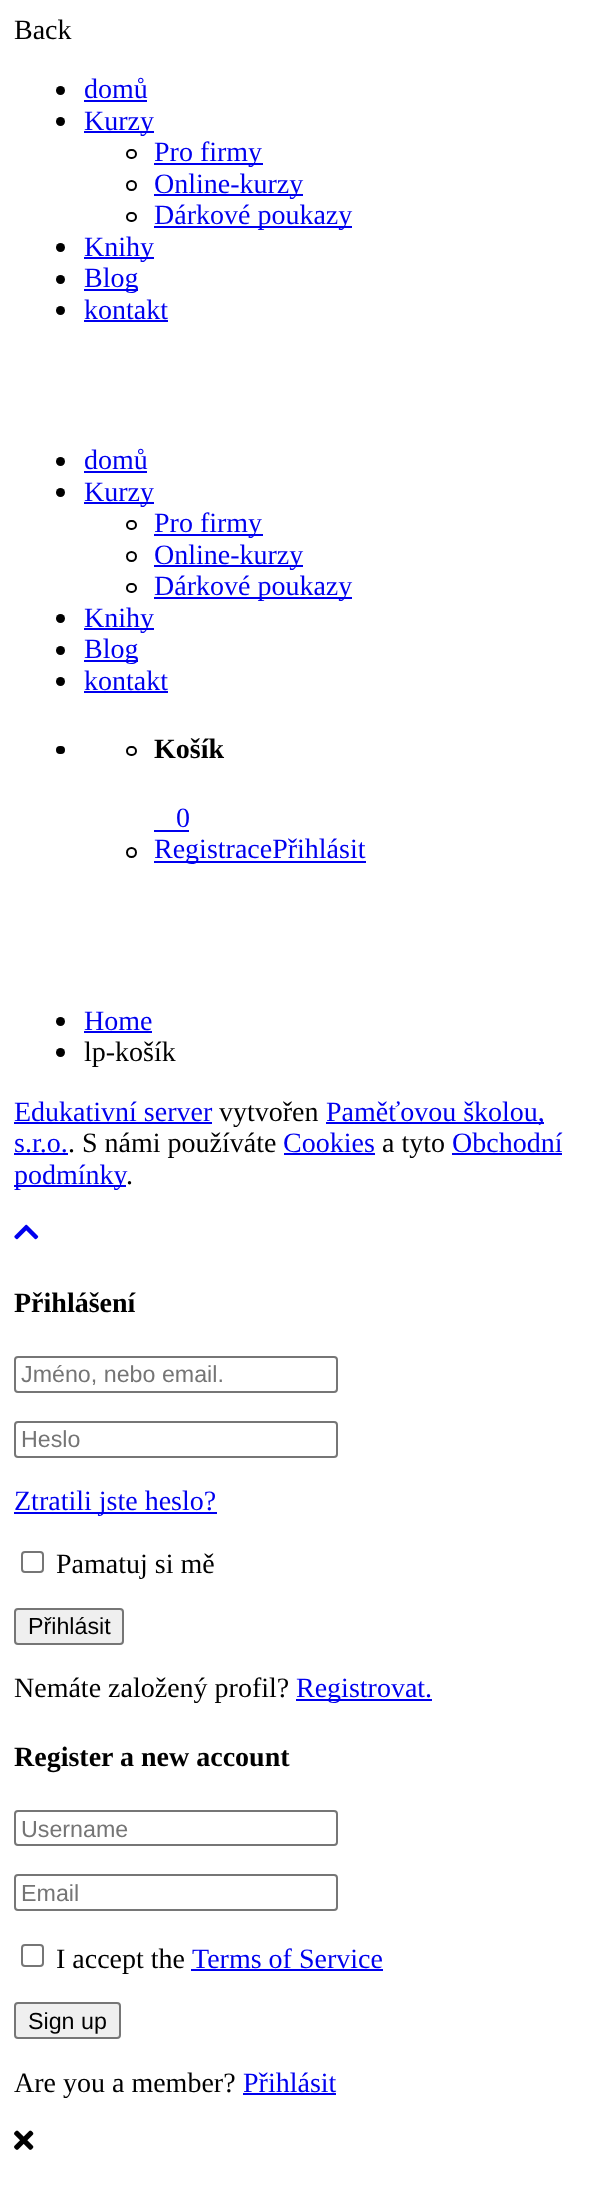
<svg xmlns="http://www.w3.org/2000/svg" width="605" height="2203">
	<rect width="100%" height="100%" fill="#FFFFFF" />
	<text x="14" y="39" font-family="Liberation Serif" font-size="28" fill="#000000">Back</text>
	<circle cx="60.5" cy="90.5" r="4.5" fill="#000000" />
	<text x="84" y="98" font-family="Liberation Serif" font-size="28" fill="#0000EE">domů</text>
	<rect x="84" y="100" width="63" height="2" fill="#0000EE" />
	<circle cx="60.5" cy="121.5" r="4.5" fill="#000000" />
	<rect x="84" y="131" width="70" height="2" fill="#0000EE" />
	<text x="84" y="130" font-family="Liberation Serif" font-size="28" fill="#0000EE">Kurzy</text>
	<rect x="127" y="150" width="9" height="8" rx="4" fill="none" stroke="#000000" stroke-width="2" />
	<rect x="154" y="163" width="109" height="2" fill="#0000EE" />
	<text x="154" y="161" font-family="Liberation Serif" font-size="28" fill="#0000EE">Pro firmy</text>
	<circle cx="131.5" cy="185.5" r="4.5" fill="none" stroke="#000000" stroke-width="2" />
	<rect x="154" y="194" width="149" height="2" fill="#0000EE" />
	<text x="154" y="193" font-family="Liberation Serif" font-size="28" fill="#0000EE">Online-kurzy</text>
	<rect x="127" y="213" width="9" height="8" rx="4" fill="none" stroke="#000000" stroke-width="2" />
	<rect x="154" y="226" width="198" height="2" fill="#0000EE" />
	<text x="154" y="224" font-family="Liberation Serif" font-size="28" fill="#0000EE">Dárkové poukazy</text>
	<circle cx="60.5" cy="247.5" r="4.5" fill="#000000" />
	<rect x="84" y="257" width="70" height="2" fill="#0000EE" />
	<text x="84" y="256" font-family="Liberation Serif" font-size="28" fill="#0000EE">Knihy</text>
	<circle cx="60.5" cy="279.5" r="4.5" fill="#000000" />
	<rect x="84" y="289" width="54" height="2" fill="#0000EE" />
	<text x="84" y="287" font-family="Liberation Serif" font-size="28" fill="#0000EE">Blog</text>
	<circle cx="60.5" cy="310.5" r="4.5" fill="#000000" />
	<text x="84" y="319" font-family="Liberation Serif" font-size="28" fill="#0000EE">kontakt</text>
	<rect x="84" y="320" width="84" height="2" fill="#0000EE" />
	<circle cx="60.5" cy="461.5" r="4.5" fill="#000000" />
	<text x="84" y="469" font-family="Liberation Serif" font-size="28" fill="#0000EE">domů</text>
	<rect x="84" y="471" width="63" height="2" fill="#0000EE" />
	<circle cx="60.5" cy="492.5" r="4.5" fill="#000000" />
	<rect x="84" y="502" width="70" height="2" fill="#0000EE" />
	<text x="84" y="501" font-family="Liberation Serif" font-size="28" fill="#0000EE">Kurzy</text>
	<rect x="127" y="521" width="9" height="8" rx="4" fill="none" stroke="#000000" stroke-width="2" />
	<rect x="154" y="534" width="109" height="2" fill="#0000EE" />
	<text x="154" y="532" font-family="Liberation Serif" font-size="28" fill="#0000EE">Pro firmy</text>
	<circle cx="131.5" cy="556.5" r="4.5" fill="none" stroke="#000000" stroke-width="2" />
	<rect x="154" y="565" width="149" height="2" fill="#0000EE" />
	<text x="154" y="564" font-family="Liberation Serif" font-size="28" fill="#0000EE">Online-kurzy</text>
	<rect x="127" y="584" width="9" height="8" rx="4" fill="none" stroke="#000000" stroke-width="2" />
	<rect x="154" y="597" width="198" height="2" fill="#0000EE" />
	<text x="154" y="595" font-family="Liberation Serif" font-size="28" fill="#0000EE">Dárkové poukazy</text>
	<circle cx="60.5" cy="618.5" r="4.5" fill="#000000" />
	<rect x="84" y="628" width="70" height="2" fill="#0000EE" />
	<text x="84" y="627" font-family="Liberation Serif" font-size="28" fill="#0000EE">Knihy</text>
	<circle cx="60.5" cy="650.5" r="4.5" fill="#000000" />
	<rect x="84" y="660" width="54" height="2" fill="#0000EE" />
	<text x="84" y="658" font-family="Liberation Serif" font-size="28" fill="#0000EE">Blog</text>
	<circle cx="60.5" cy="681.5" r="4.5" fill="#000000" />
	<text x="84" y="690" font-family="Liberation Serif" font-size="28" fill="#0000EE">kontakt</text>
	<rect x="84" y="691" width="84" height="2" fill="#0000EE" />
	<rect x="56" y="746" width="9" height="8" rx="4" fill="#000000" />
	<rect x="127" y="747" width="9" height="8" rx="4" fill="none" stroke="#000000" stroke-width="2" />
	<text x="154" y="758" font-family="Liberation Serif" font-size="28" font-weight="700" fill="#000000">Košík</text>
	<text x="176" y="827" font-family="Liberation Serif" font-size="28" fill="#0000EE">0</text>
	<rect x="154" y="830" width="35" height="2" fill="#0000EE" />
	<circle cx="131.5" cy="852.5" r="4.5" fill="none" stroke="#000000" stroke-width="2" />
	<rect x="154" y="861" width="212" height="2" fill="#0000EE" />
	<text x="154" y="858" font-family="Liberation Serif" font-size="28" fill="#0000EE">RegistracePřihlásit</text>
	<circle cx="60.5" cy="1021.5" r="4.5" fill="#000000" />
	<text x="84" y="1030" font-family="Liberation Serif" font-size="28" fill="#0000EE">Home</text>
	<rect x="84" y="1031" width="68" height="2" fill="#0000EE" />
	<circle cx="60.5" cy="1052.5" r="4.5" fill="#000000" />
	<text x="84" y="1061" font-family="Liberation Serif" font-size="28" fill="#000000">lp-košík</text>
	<text x="14" y="1121" font-family="Liberation Serif" font-size="28" fill="#0000EE">Edukativní server</text>
	<rect x="14" y="1122" width="198" height="2" fill="#0000EE" />
	<text x="219" y="1121" font-family="Liberation Serif" font-size="28" fill="#000000">vytvořen</text>
	<rect x="326" y="1122" width="218" height="2" fill="#0000EE" />
	<g font-family="Liberation Serif" font-size="28" fill="#0000EE">
		<text x="326" y="1121">Paměťovou školou,</text>
		<text x="14" y="1152">s.r.o.</text>
	</g>
	<rect x="14" y="1153" width="54" height="2" fill="#0000EE" />
	<text x="68" y="1152" font-family="Liberation Serif" font-size="28" fill="#000000">. S námi používáte</text>
	<text x="283" y="1152" font-family="Liberation Serif" font-size="28" fill="#0000EE">Cookies</text>
	<rect x="284" y="1153" width="91" height="2" fill="#0000EE" />
	<text x="382" y="1152" font-family="Liberation Serif" font-size="28" fill="#000000">a tyto</text>
	<text x="452" y="1152" font-family="Liberation Serif" font-size="28" fill="#0000EE">Obchodní</text>
	<rect x="452" y="1153" width="110" height="2" fill="#0000EE" />
	<rect x="14" y="1185" width="112" height="2" fill="#0000EE" />
	<text x="14" y="1184" font-family="Liberation Serif" font-size="28" fill="#0000EE">podmínky</text>
	<text x="126" y="1184" font-family="Liberation Serif" font-size="28" fill="#000000">.</text>
	<image x="14" y="1224" width="25" height="16" href="assets/img1.png" />
	<text x="14" y="1312" font-family="Liberation Serif" font-size="28" font-weight="700" fill="#000000">Přihlášení</text>
	<rect x="15" y="1357" width="322" height="35" rx="3" fill="none" stroke="#767676" stroke-width="2" />
	<text x="21" y="1382" font-family="Liberation Sans" font-size="23.25" fill="#757575">Jméno, nebo email.</text>
	<rect x="15" y="1422" width="322" height="35" rx="3" fill="none" stroke="#767676" stroke-width="2" />
	<text x="21" y="1447" font-family="Liberation Sans" font-size="23.25" fill="#757575">Heslo</text>
	<rect x="14" y="1512" width="203" height="2" fill="#0000EE" />
	<text x="14" y="1510" font-family="Liberation Serif" font-size="28" fill="#0000EE">Ztratili jste heslo?</text>
	<rect x="22" y="1552" width="21" height="20" rx="3" fill="none" stroke="#767676" stroke-width="2" />
	<text x="56" y="1573" font-family="Liberation Serif" font-size="28" fill="#000000">Pamatuj si mě</text>
	<rect x="15" y="1609" width="108" height="35" rx="3" fill="#EFEFEF" stroke="#767676" stroke-width="2" />
	<text x="28" y="1634" font-family="Liberation Sans" font-size="23.25" fill="#000000">Přihlásit</text>
	<text x="14" y="1697" font-family="Liberation Serif" font-size="28" fill="#000000">Nemáte založený profil?</text>
	<rect x="296" y="1699" width="136" height="2" fill="#0000EE" />
	<text x="296" y="1697" font-family="Liberation Serif" font-size="28" fill="#0000EE">Registrovat.</text>
	<text x="14" y="1766" font-family="Liberation Serif" font-size="28" font-weight="700" fill="#000000">Register a new account</text>
	<rect x="15" y="1811" width="322" height="34" rx="3" fill="none" stroke="#767676" stroke-width="2" />
	<text x="21" y="1837" font-family="Liberation Sans" font-size="23.25" fill="#757575">Username</text>
	<rect x="15" y="1875" width="322" height="35" rx="3" fill="none" stroke="#767676" stroke-width="2" />
	<text x="21" y="1901" font-family="Liberation Sans" font-size="23.25" fill="#757575">Email</text>
	<rect x="22" y="1945" width="21" height="21" rx="3" fill="none" stroke="#767676" stroke-width="2" />
	<text x="56" y="1968" font-family="Liberation Serif" font-size="28" fill="#000000">I accept the</text>
	<text x="192" y="1968" font-family="Liberation Serif" font-size="28" fill="#0000EE">Terms of Service</text>
	<rect x="191" y="1969" width="192" height="2" fill="#0000EE" />
	<rect x="15" y="2003" width="105" height="35" rx="3" fill="#EFEFEF" stroke="#767676" stroke-width="2" />
	<text x="28" y="2029" font-family="Liberation Sans" font-size="23.25" fill="#000000">Sign up</text>
	<text x="14" y="2092" font-family="Liberation Serif" font-size="28" fill="#000000">Are you a member?</text>
	<text x="243" y="2092" font-family="Liberation Serif" font-size="28" fill="#0000EE">Přihlásit</text>
	<rect x="243" y="2093" width="93" height="2" fill="#0000EE" />
	<image x="14" y="2130" width="20" height="20" href="assets/img2.png" />
</svg>
